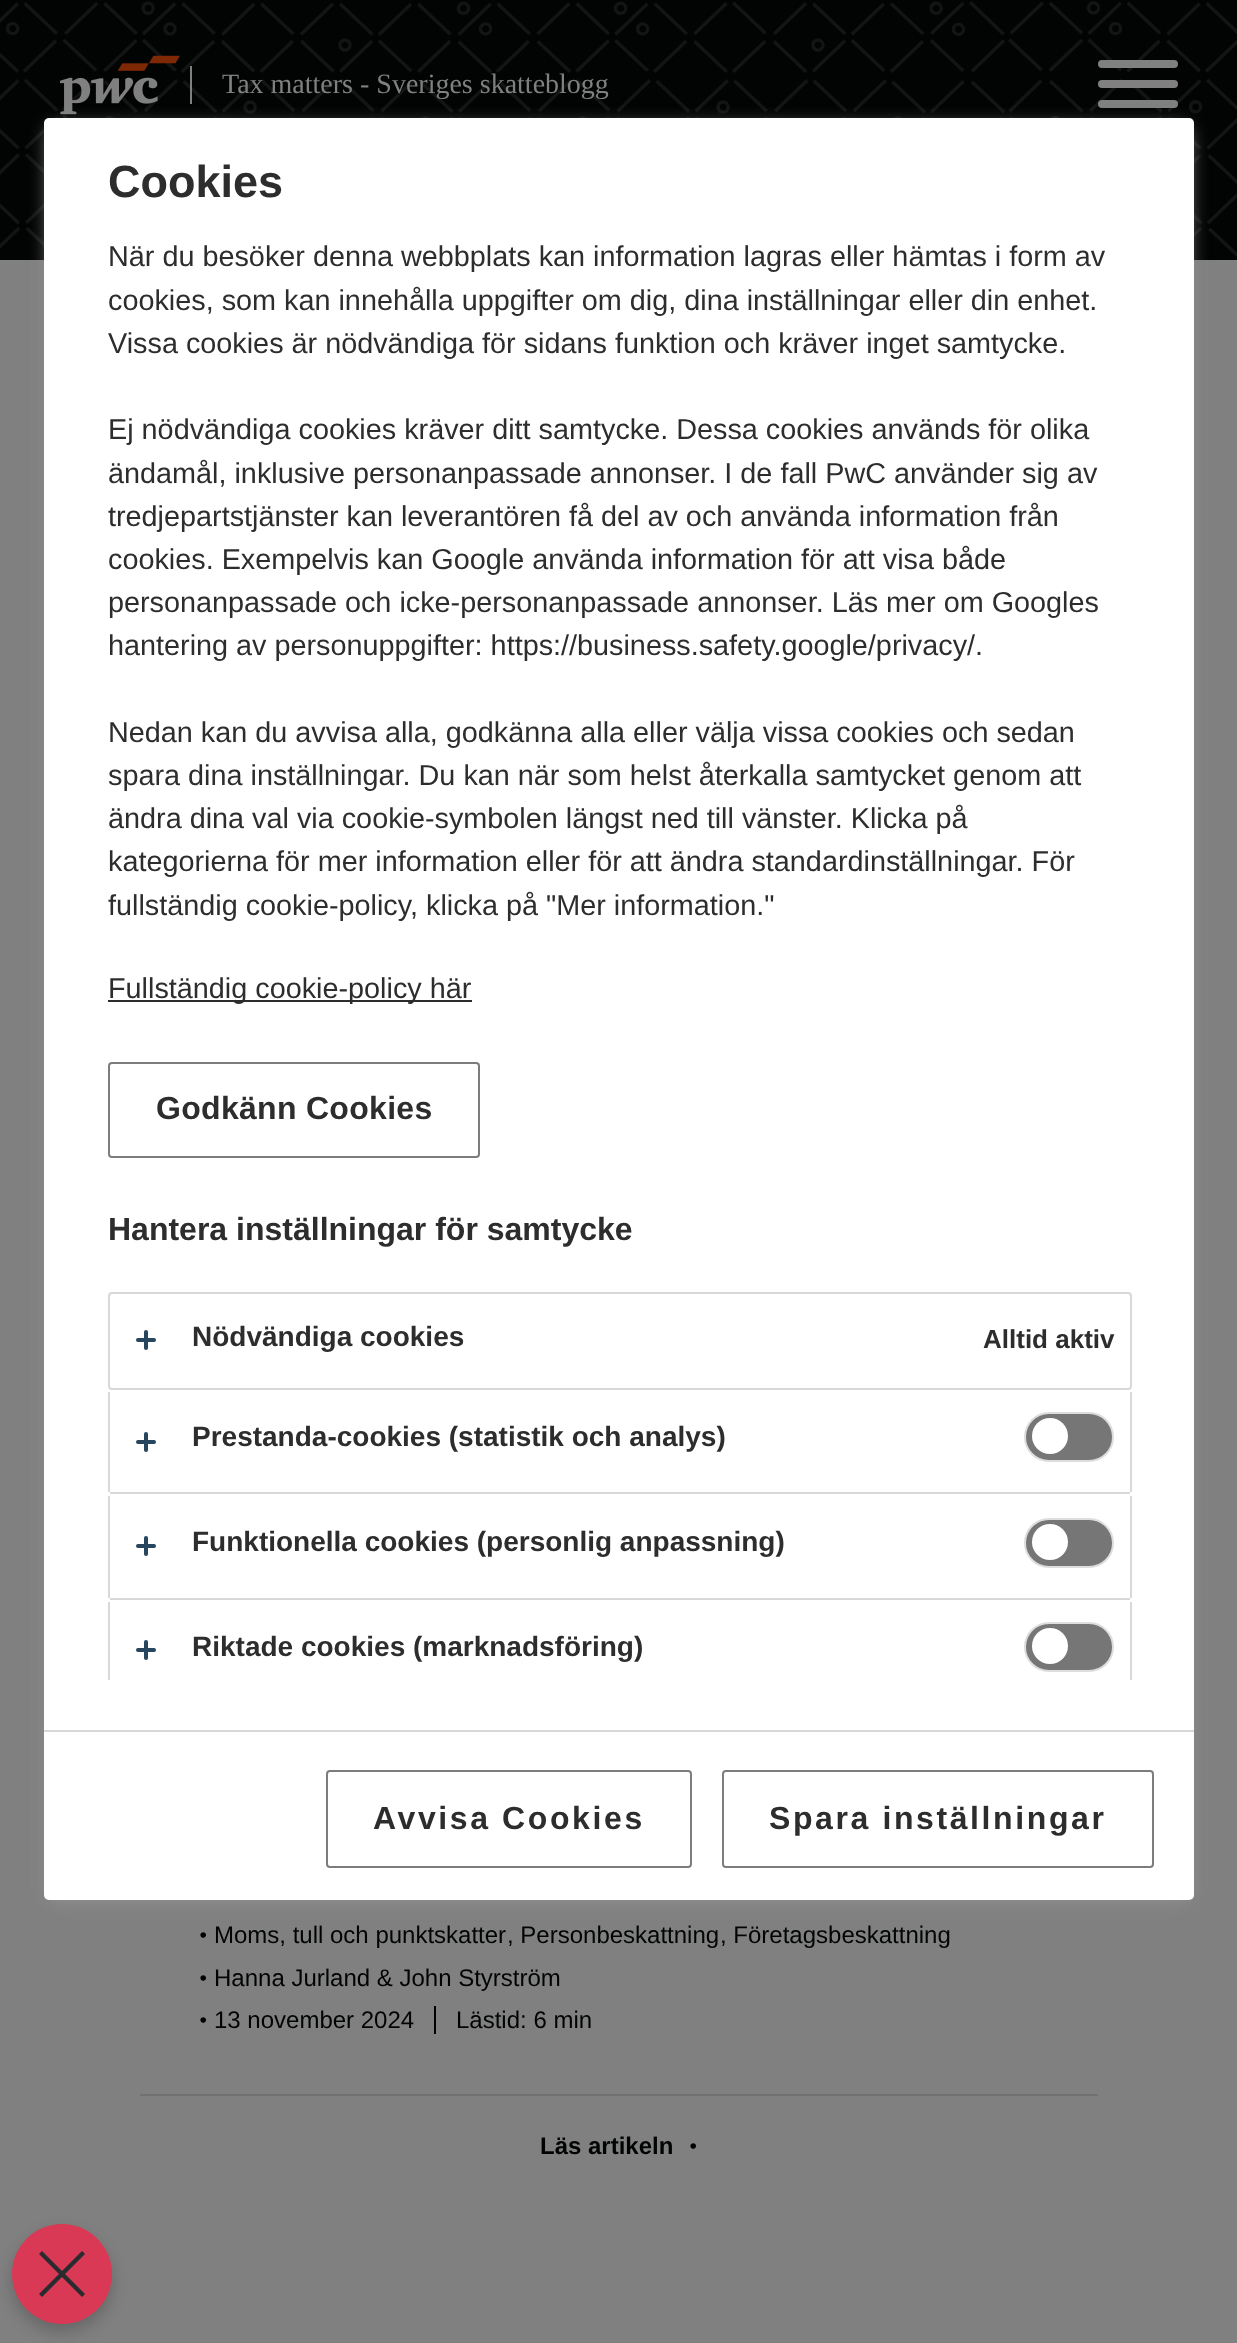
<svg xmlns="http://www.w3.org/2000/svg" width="1237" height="2343">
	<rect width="100%" height="100%" fill="#808080" />
	<rect x="0" y="0" width="1237" height="260" fill="#020404" />
	<image x="0" y="1" width="1237" height="256" href="assets/img1.png" />
	<image x="60" y="55" width="120" height="60" href="assets/img2.png" />
	<rect x="190" y="66" width="2" height="38" fill="#808080" />
	<text x="222" y="93" font-family="Liberation Serif" font-size="28" fill="#808080">Tax matters - Sveriges skatteblogg</text>
	<rect x="1098" y="60" width="80" height="8" rx="4" fill="#808080" />
	<rect x="1098" y="80" width="80" height="8" rx="4" fill="#808080" />
	<rect x="1098" y="100" width="80" height="8" rx="4" fill="#808080" />
	<rect x="50" y="128" width="1138" height="1770" fill="#999999" filter="blur(10px)" />
	<rect x="44" y="118" width="1150" height="1782" rx="5" fill="#FFFFFF" />
	<text x="108" y="197" font-family="Liberation Sans" font-size="45" font-weight="700" fill="#2D2D2D">Cookies</text>
	<g font-family="Liberation Sans" font-size="28.8" fill="#2D2D2D">
		<text x="108" y="266">När du besöker denna webbplats kan information lagras eller hämtas i form av</text>
		<text x="108" y="310">cookies, som kan innehålla uppgifter om dig, dina inställningar eller din enhet.</text>
		<text x="108" y="353">Vissa cookies är nödvändiga för sidans funktion och kräver inget samtycke.</text>
		<text x="108" y="439">Ej nödvändiga cookies kräver ditt samtycke. Dessa cookies används för olika</text>
		<text x="108" y="483">ändamål, inklusive personanpassade annonser. I de fall PwC använder sig av</text>
		<text x="108" y="526">tredjepartstjänster kan leverantören få del av och använda information från</text>
		<text x="108" y="569">cookies. Exempelvis kan Google använda information för att visa både</text>
		<text x="108" y="612">personanpassade och icke-personanpassade annonser. Läs mer om Googles</text>
		<text x="108" y="655">hantering av personuppgifter: https://business.safety.google/privacy/.</text>
		<text x="108" y="742">Nedan kan du avvisa alla, godkänna alla eller välja vissa cookies och sedan</text>
		<text x="108" y="785">spara dina inställningar. Du kan när som helst återkalla samtycket genom att</text>
		<text x="108" y="828">ändra dina val via cookie-symbolen längst ned till vänster. Klicka på</text>
		<text x="108" y="871">kategorierna för mer information eller för att ändra standardinställningar. För</text>
		<text x="108" y="915">fullständig cookie-policy, klicka på "Mer information."</text>
	</g>
	<rect x="108" y="1000" width="364" height="2" fill="#2D2D2D" />
	<text x="108" y="998" font-family="Liberation Sans" font-size="28.8" fill="#2D2D2D">Fullständig cookie-policy här</text>
	<rect x="109" y="1063" width="370" height="94" rx="3" fill="none" stroke="#7D7D7D" stroke-width="2" />
	<text x="156" y="1119" font-family="Liberation Sans" font-size="32" font-weight="700" letter-spacing="0.3" fill="#2D2D2D">Godkänn Cookies</text>
	<text x="108" y="1240" font-family="Liberation Sans" font-size="32" font-weight="700" fill="#2D2D2D">Hantera inställningar för samtycke</text>
	<rect x="109" y="1293" width="1022" height="96" rx="3" fill="none" stroke="#D8D8D8" stroke-width="2" />
	<rect x="144" y="1330" width="4" height="20" rx="2" fill="#27455C" />
	<rect x="136" y="1338" width="20" height="4" rx="2" fill="#27455C" />
	<text x="192" y="1346" font-family="Liberation Sans" font-size="28" font-weight="700" fill="#2D2D2D">Nödvändiga cookies</text>
	<text x="983" y="1348" font-family="Liberation Sans" font-size="26" font-weight="700" fill="#2D2D2D">Alltid aktiv</text>
	<rect x="1130" y="1392" width="2" height="100" fill="#D8D8D8" />
	<rect x="110" y="1492" width="1020" height="2" fill="#D8D8D8" />
	<rect x="108" y="1392" width="2" height="100" fill="#D8D8D8" />
	<rect x="144" y="1432" width="4" height="20" rx="2" fill="#27455C" />
	<rect x="136" y="1440" width="20" height="4" rx="2" fill="#27455C" />
	<text x="192" y="1446" font-family="Liberation Sans" font-size="28" font-weight="700" fill="#2D2D2D">Prestanda-cookies (statistik och analys)</text>
	<rect x="1025" y="1413" width="88" height="48" rx="24" fill="#767676" stroke="#DDDDDD" stroke-width="2" />
	<circle cx="1050" cy="1436" r="18" fill="#FFFFFF" />
	<rect x="1130" y="1496" width="2" height="102" fill="#D8D8D8" />
	<rect x="110" y="1598" width="1020" height="2" fill="#D8D8D8" />
	<rect x="108" y="1496" width="2" height="102" fill="#D8D8D8" />
	<rect x="144" y="1536" width="4" height="20" rx="2" fill="#27455C" />
	<rect x="136" y="1544" width="20" height="4" rx="2" fill="#27455C" />
	<text x="192" y="1551" font-family="Liberation Sans" font-size="28" font-weight="700" fill="#2D2D2D">Funktionella cookies (personlig anpassning)</text>
	<rect x="1025" y="1519" width="88" height="48" rx="24" fill="#767676" stroke="#DDDDDD" stroke-width="2" />
	<circle cx="1050" cy="1542" r="18" fill="#FFFFFF" />
	<rect x="1130" y="1602" width="2" height="78" fill="#D8D8D8" />
	<rect x="108" y="1602" width="2" height="78" fill="#D8D8D8" />
	<rect x="144" y="1640" width="4" height="20" rx="2" fill="#27455C" />
	<rect x="136" y="1648" width="20" height="4" rx="2" fill="#27455C" />
	<text x="192" y="1656" font-family="Liberation Sans" font-size="28" font-weight="700" fill="#2D2D2D">Riktade cookies (marknadsföring)</text>
	<rect x="1025" y="1623" width="88" height="48" rx="24" fill="#767676" stroke="#DDDDDD" stroke-width="2" />
	<circle cx="1050" cy="1646" r="18" fill="#FFFFFF" />
	<rect x="44" y="1730" width="1150" height="2" fill="#D8D8D8" />
	<rect x="327" y="1771" width="364" height="96" rx="3" fill="none" stroke="#7D7D7D" stroke-width="2" />
	<text x="373" y="1829" font-family="Liberation Sans" font-size="32" font-weight="700" letter-spacing="2.6" fill="#2D2D2D">Avvisa Cookies</text>
	<rect x="723" y="1771" width="430" height="96" rx="3" fill="none" stroke="#7D7D7D" stroke-width="2" />
	<text x="769" y="1829" font-family="Liberation Sans" font-size="32" font-weight="700" letter-spacing="2.6" fill="#2D2D2D">Spara inställningar</text>
	<rect x="12" y="2232" width="100" height="100" rx="50" fill="#000000" fill-opacity="0.2" filter="blur(8px)" />
	<circle cx="62" cy="2274" r="50" fill="#D93954" />
	<path d="M39 2254L82 2297L85 2294L42 2251Z" fill="#292B2E" />
	<path d="M85 2254L42 2297L39 2294L82 2251Z" fill="#292B2E" />
	<text x="199" y="1943" font-family="Liberation Serif" font-size="24" fill="#020404">•</text>
	<g font-family="Liberation Sans" font-size="24" fill="#020404">
		<text x="214" y="1943">Moms, tull och punktskatter</text>
		<text x="507" y="1943">, Personbeskattning</text>
		<text x="720" y="1943">, Företagsbeskattning</text>
	</g>
	<text x="199" y="1986" font-family="Liberation Serif" font-size="24" fill="#020404">•</text>
	<text x="214" y="1986" font-family="Liberation Sans" font-size="24" fill="#020404">Hanna Jurland &amp; John Styrström</text>
	<text x="199" y="2028" font-family="Liberation Serif" font-size="24" fill="#020404">•</text>
	<g font-family="Liberation Sans" font-size="24" fill="#020404">
		<text x="214" y="2028">13 november 2024</text>
		<text x="456" y="2028">Lästid: 6 min</text>
	</g>
	<rect x="434" y="2006" width="2" height="28" fill="#020404" />
	<rect x="140" y="2094" width="958" height="2" fill="#6F7173" />
	<text x="540" y="2154" font-family="Liberation Sans" font-size="24" font-weight="700" fill="#020404">Läs artikeln</text>
	<text x="689" y="2154" font-family="Liberation Serif" font-size="24" fill="#020404">•</text>
</svg>
